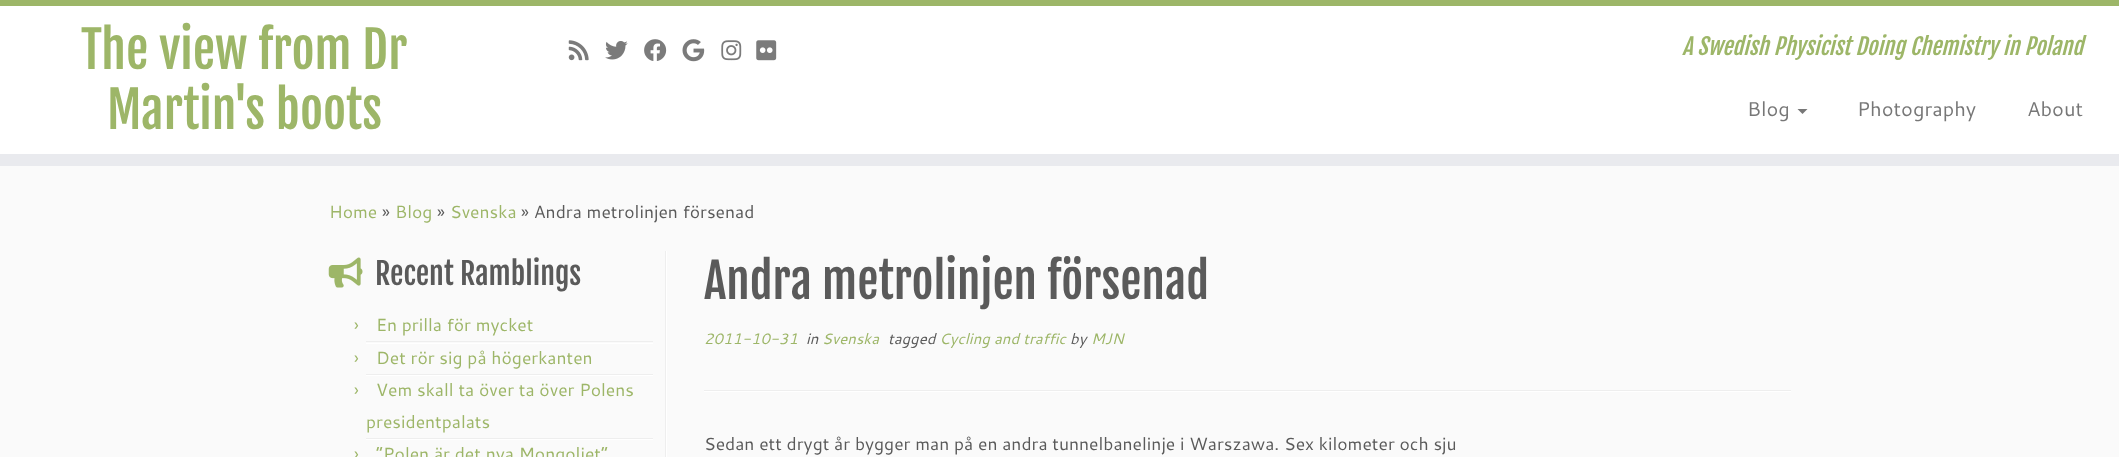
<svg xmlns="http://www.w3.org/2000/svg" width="2119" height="457">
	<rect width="100%" height="100%" fill="#FAFAFA" />
	<rect x="0" y="6" width="2119" height="148" fill="#FFFFFF" />
	<rect x="0" y="0" width="2119" height="6" fill="#9DB668" />
	<rect x="0" y="154" width="2119" height="12" fill="#E9EAEE" />
	<g font-family="Fjalla One" font-size="50" fill="#9DB668">
		<text x="81" y="69">The view from Dr</text>
		<text x="107" y="129">Martin's boots</text>
	</g>
	<image x="568" y="40" width="21" height="21" href="assets/img1.png" />
	<image x="605" y="41" width="23" height="19" href="assets/img2.png" />
	<image x="644" y="39" width="23" height="22" href="assets/img3.png" />
	<image x="682" y="39" width="23" height="23" href="assets/img4.png" />
	<image x="721" y="40" width="21" height="21" href="assets/img5.png" />
	<image x="756" y="40" width="21" height="21" href="assets/img6.png" />
	<text x="1682" y="55" font-family="Fjalla One" font-size="22.5" font-style="italic" fill="#9DB668">A Swedish Physicist Doing Chemistry in Poland</text>
	<text x="1747" y="116" font-family="Cantarell" font-size="20" fill="#777777">Blog</text>
	<path d="M1797.5 109H1807.5L1802.5 114Z" fill="#777777" />
	<g font-family="Cantarell" font-size="20" fill="#777777">
		<text x="1857" y="116">Photography</text>
		<text x="2027" y="116">About</text>
	</g>
	<text x="329" y="218" font-family="Cantarell" font-size="17.5" fill="#9DB668">Home</text>
	<text x="382" y="218" font-family="Cantarell" font-size="17.5" fill="#5A5A5A">»</text>
	<text x="395" y="218" font-family="Cantarell" font-size="17.5" fill="#9DB668">Blog</text>
	<text x="437" y="218" font-family="Cantarell" font-size="17.5" fill="#5A5A5A">»</text>
	<text x="450" y="218" font-family="Cantarell" font-size="17.5" fill="#9DB668">Svenska</text>
	<text x="521" y="218" font-family="Cantarell" font-size="17.5" fill="#5A5A5A">» Andra metrolinjen försenad</text>
	<rect x="665" y="251" width="1" height="206" fill="#EEEEEE" />
	<image x="328" y="257" width="35" height="31" href="assets/img7.png" />
	<text x="375" y="285" font-family="Fjalla One" font-size="30" fill="#5A5A5A">Recent Ramblings</text>
	<rect x="366" y="341" width="287" height="1" fill="#EEEEEE" />
	<g font-family="Cantarell" font-size="17.5" fill="#9DB668">
		<text x="354" y="331">›</text>
		<text x="376" y="331">En prilla för mycket</text>
	</g>
	<rect x="366" y="343" width="287" height="1" fill="#FFFFFF" />
	<rect x="366" y="374" width="287" height="1" fill="#EEEEEE" />
	<g font-family="Cantarell" font-size="17.5" fill="#9DB668">
		<text x="354" y="364">›</text>
		<text x="376" y="364">Det rör sig på högerkanten</text>
	</g>
	<rect x="366" y="375" width="287" height="1" fill="#FFFFFF" />
	<rect x="366" y="438" width="287" height="1" fill="#EEEEEE" />
	<g font-family="Cantarell" font-size="17.5" fill="#9DB668">
		<text x="354" y="396">›</text>
		<text x="376" y="396">Vem skall ta över ta över Polens</text>
		<text x="366" y="428">presidentpalats</text>
	</g>
	<rect x="366" y="439" width="287" height="1" fill="#FFFFFF" />
	<g font-family="Cantarell" font-size="17.5" fill="#9DB668">
		<text x="354" y="460">›</text>
		<text x="376" y="460">“Polen är det nya Mongoliet”</text>
	</g>
	<rect x="666" y="251" width="1" height="206" fill="#FFFFFF" />
	<text x="704" y="299" font-family="Fjalla One" font-size="47.5" fill="#5A5A5A">Andra metrolinjen försenad</text>
	<text x="704" y="344" font-family="Cantarell" font-size="15" font-style="italic" fill="#9DB668">2011-10-31</text>
	<text x="806" y="344" font-family="Cantarell" font-size="15" font-style="italic" fill="#5A5A5A">in</text>
	<text x="822" y="344" font-family="Cantarell" font-size="15" font-style="italic" fill="#9DB668">Svenska</text>
	<text x="888" y="344" font-family="Cantarell" font-size="15" font-style="italic" fill="#5A5A5A">tagged</text>
	<text x="939" y="344" font-family="Cantarell" font-size="15" font-style="italic" fill="#9DB668">Cycling and traffic</text>
	<text x="1070" y="344" font-family="Cantarell" font-size="15" font-style="italic" fill="#5A5A5A">by</text>
	<text x="1091" y="344" font-family="Cantarell" font-size="15" font-style="italic" fill="#9DB668">MJN</text>
	<rect x="704" y="390" width="1087" height="1" fill="#EEEEEE" />
	<rect x="704" y="391" width="1087" height="1" fill="#FFFFFF" />
	<text x="704" y="450" font-family="Cantarell" font-size="17.5" fill="#5A5A5A">Sedan ett drygt år bygger man på en andra tunnelbanelinje i Warszawa. Sex kilometer och sju</text>
</svg>
